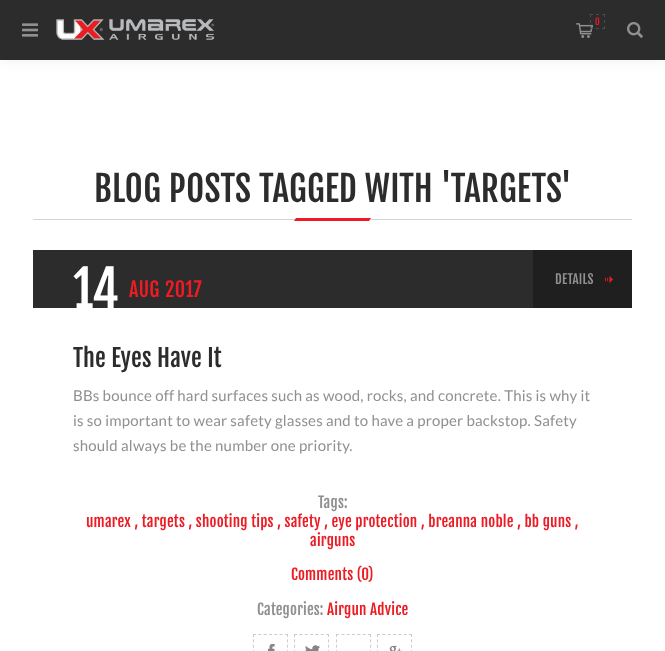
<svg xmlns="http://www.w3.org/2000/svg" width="665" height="651">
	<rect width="100%" height="100%" fill="#FFFFFF" />
	<rect x="0" y="0" width="665" height="60" fill="#000000" fill-opacity="0.06" filter="blur(7px)" />
	<rect x="0" y="0" width="665" height="60" fill="#2C2C2C" />
	<image x="22" y="23" width="16" height="14" href="assets/img1.png" />
	<image x="56" y="19" width="159" height="21" href="assets/img2.png" />
	<image x="576" y="23" width="17" height="15" href="assets/img3.png" />
	<path d="M590 14.5H593M596 14.5H599M602 14.5H605M604.5 14V17M604.5 20V23M604.5 26V29M590 28.5H593M596 28.5H599M602 28.5H605M590.5 14V17M590.5 20V23M590.5 26V29" fill="none" stroke="#4C4C4C" />
	<text x="595" y="25" font-family="Fjalla One" font-size="9" letter-spacing="0.2" fill="#ED1C24">0</text>
	<image x="627" y="22" width="16" height="16" href="assets/img4.png" />
	<rect x="33" y="219" width="599" height="1" fill="#D4D4D4" />
	<text x="94" y="202" font-family="Fjalla One" font-size="35" letter-spacing="0.2" fill="#2C2C2C">BLOG POSTS TAGGED WITH 'TARGETS'</text>
	<path d="M296 218H371L369 221H294Z" fill="#ED1C24" />
	<rect x="33" y="250" width="500" height="58" fill="#2C2C2C" />
	<text x="73" y="308" font-family="Fjalla One" font-size="50" letter-spacing="0.2" fill="#FFFFFF">14</text>
	<g font-family="Fjalla One" font-size="20" letter-spacing="0.2" fill="#ED1C24">
		<text x="129" y="297">AUG</text>
		<text x="165" y="297">2017</text>
	</g>
	<rect x="533" y="250" width="99" height="58" fill="#1F1F1F" />
	<text x="555" y="284" font-family="Fjalla One" font-size="13" letter-spacing="0.2" fill="#909090">DETAILS</text>
	<image x="605" y="276" width="8" height="7" href="assets/img5.png" />
	<text x="73" y="367" font-family="Fjalla One" font-size="24" letter-spacing="0.2" fill="#2C2C2C">The Eyes Have It</text>
	<g font-family="Lato" font-size="15" letter-spacing="0.2" fill="#909090">
		<text x="73" y="401">BBs bounce off hard surfaces such as wood, rocks, and concrete. This is why it</text>
		<text x="73" y="426">is so important to wear safety glasses and to have a proper backstop. Safety</text>
		<text x="73" y="451">should always be the number one priority.</text>
	</g>
	<text x="318" y="508" font-family="Fjalla One" font-size="15" letter-spacing="0.2" fill="#909090">Tags:</text>
	<g font-family="Fjalla One" font-size="15" letter-spacing="0.2" fill="#ED1C24">
		<text x="86" y="527">umarex , targets , shooting tips , safety , eye protection , breanna noble , bb guns ,</text>
		<text x="310" y="546">airguns</text>
		<text x="291" y="580">Comments (0)</text>
	</g>
	<text x="257" y="615" font-family="Fjalla One" font-size="15" letter-spacing="0.2" fill="#909090">Categories:</text>
	<text x="327" y="615" font-family="Fjalla One" font-size="15" letter-spacing="0.2" fill="#ED1C24">Airgun Advice</text>
	<path d="M253 634.5H288M287.5 634V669M253.5 634V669" fill="none" stroke="#CCCCCC" stroke-dasharray="3 2.33" />
	<image x="267" y="643" width="8" height="8" href="assets/img6.png" />
	<path d="M294 634.5H329M328.5 634V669M294.5 634V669" fill="none" stroke="#CCCCCC" stroke-dasharray="3 2.33" />
	<image x="305" y="645" width="15" height="6" href="assets/img7.png" />
	<path d="M336 634.5H371M370.5 634V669M336.5 634V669" fill="none" stroke="#CCCCCC" stroke-dasharray="3 2.33" />
	<path d="M377 634.5H412M411.5 634V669M377.5 634V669" fill="none" stroke="#CCCCCC" stroke-dasharray="3 2.33" />
	<image x="389" y="645" width="13" height="6" href="assets/img8.png" />
</svg>
